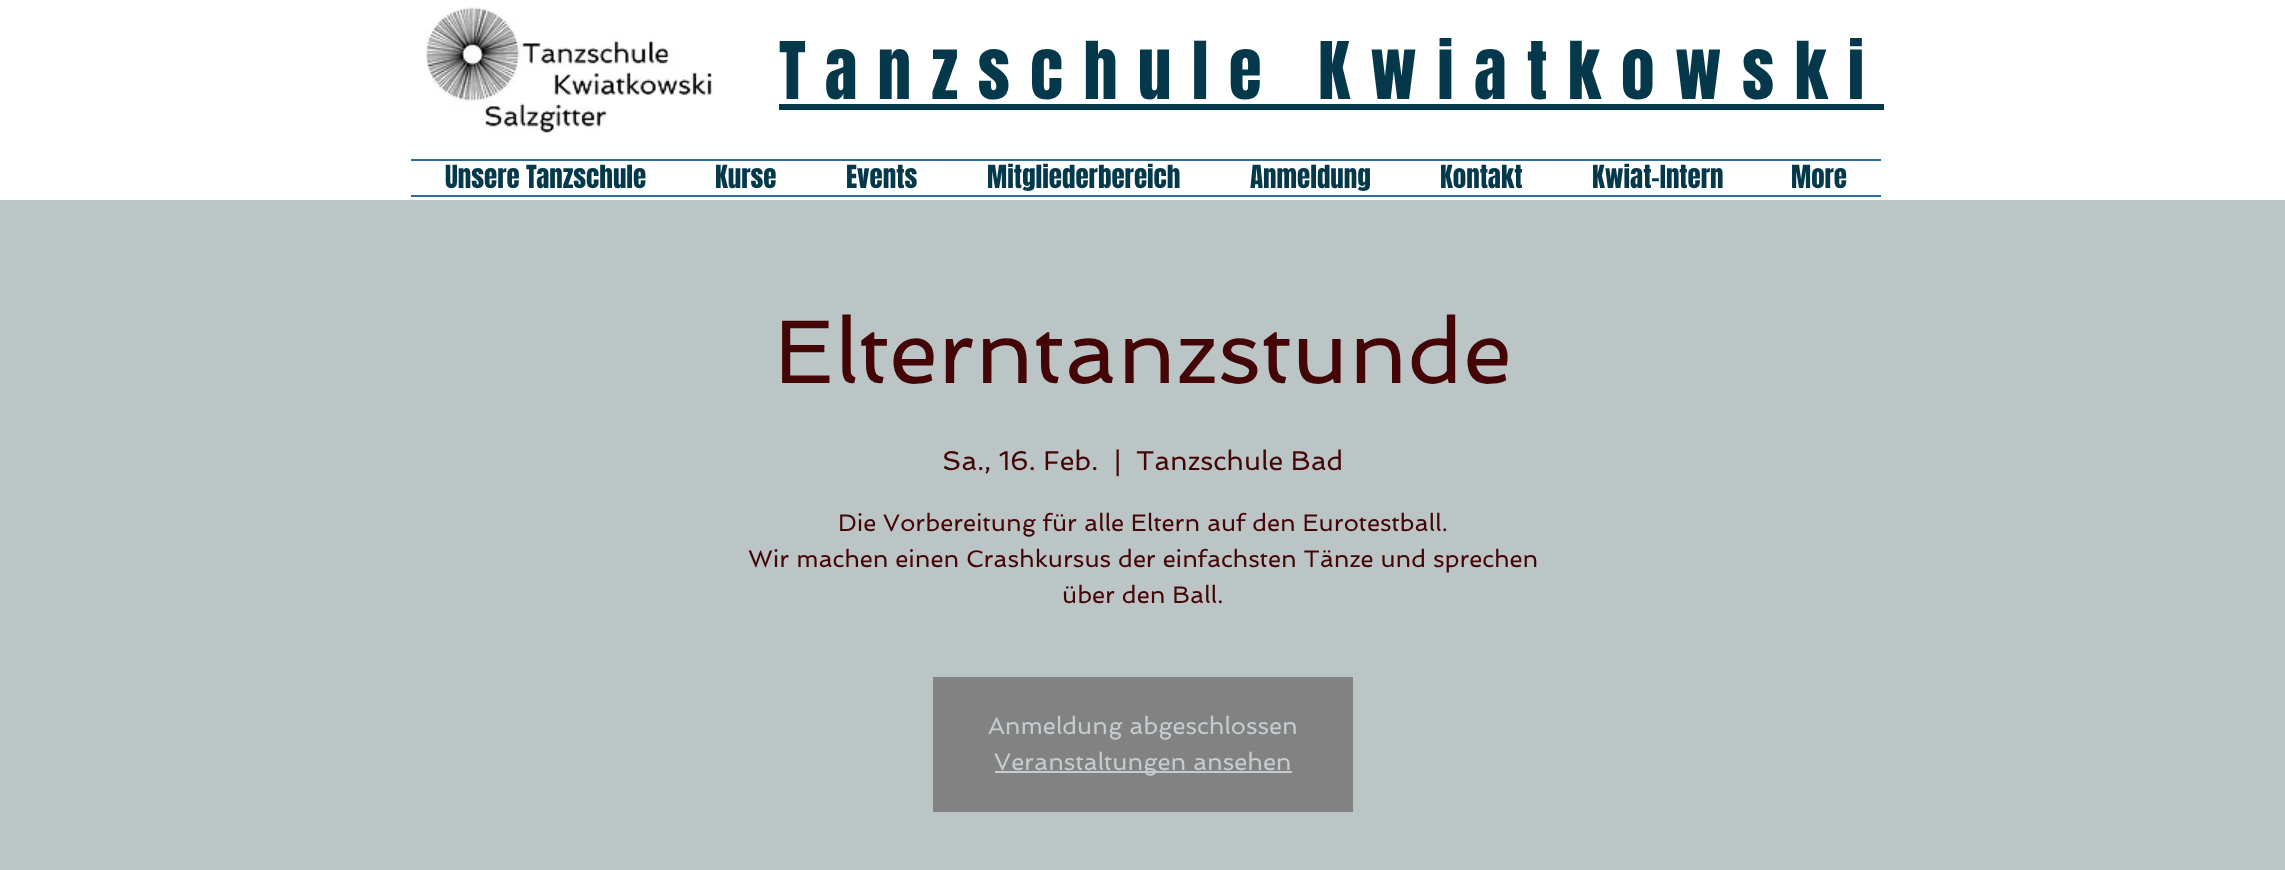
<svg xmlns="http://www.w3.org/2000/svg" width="2285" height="870">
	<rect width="100%" height="100%" fill="#BBC5C6" />
	<rect x="0" y="0" width="2285" height="200" fill="#FFFFFF" />
	<image x="425" y="6" width="289" height="127" href="assets/img1.png" />
	<text x="779" y="99" font-family="Anton" font-size="67.5" letter-spacing="20.25" fill="#04384A">Tanzschule Kwiatkowski</text>
	<rect x="779" y="104" width="1105" height="6" fill="#04384A" />
	<rect x="411" y="159" width="1470" height="2" fill="#2B6CA3" />
	<rect x="411" y="195" width="1470" height="2" fill="#2B6CA3" />
	<g font-family="Anton" font-size="27" fill="#04384A">
		<text x="445" y="188">Unsere Tanzschule</text>
		<text x="715" y="188">Kurse</text>
		<text x="846" y="188">Events</text>
		<text x="987" y="188">Mitgliederbereich</text>
		<text x="1250" y="188">Anmeldung</text>
		<text x="1440" y="188">Kontakt</text>
		<text x="1592" y="188">Kwiat-Intern</text>
		<text x="1791" y="188">More</text>
	</g>
	<text x="774" y="383" font-family="Spinnaker" font-size="90" fill="#440506">Elterntanzstunde</text>
	<g font-family="Spinnaker" font-size="27" fill="#440506">
		<text x="942" y="470">Sa., 16. Feb.</text>
		<text x="1114" y="470">|</text>
		<text x="1136" y="470">Tanzschule Bad</text>
	</g>
	<g font-family="Spinnaker" font-size="24" fill="#440506">
		<text x="838" y="531">Die Vorbereitung für alle Eltern auf den Eurotestball.</text>
		<text x="748" y="567">Wir machen einen Crashkursus der einfachsten Tänze und sprechen</text>
		<text x="1062" y="603">über den Ball.</text>
	</g>
	<rect x="933" y="677" width="420" height="135" fill="#828282" />
	<text x="988" y="734" font-family="Spinnaker" font-size="24" fill="#C4CCCF">Anmeldung abgeschlossen</text>
	<rect x="995" y="771" width="297" height="2" fill="#C4CCCF" />
	<text x="994" y="770" font-family="Spinnaker" font-size="24" fill="#C4CCCF">Veranstaltungen ansehen</text>
</svg>
